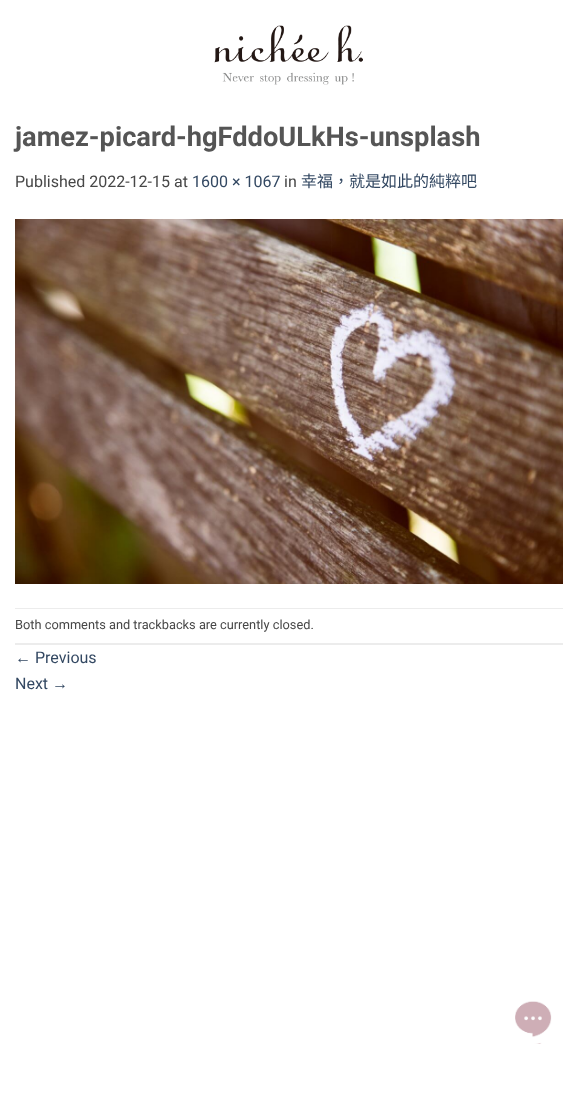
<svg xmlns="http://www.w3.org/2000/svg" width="578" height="1118">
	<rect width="100%" height="100%" fill="#FFFFFF" />
	<image x="214" y="25" width="149" height="60" href="assets/img1.png" />
	<text x="15" y="146" font-family="Roboto" font-size="27.25" font-weight="700" fill="#555555">jamez-picard-hgFddoULkHs-unsplash</text>
	<text x="15" y="187" font-family="Roboto" font-size="16" fill="#474747">Published 2022-12-15 at</text>
	<text x="192" y="187" font-family="Roboto" font-size="16" fill="#334862">1600 × 1067</text>
	<text x="284" y="187" font-family="Roboto" font-size="16" fill="#474747">in</text>
	<text x="301" y="187" font-family="Noto Sans CJK TC" font-size="16" fill="#334862">幸福，就是如此的純粹吧</text>
	<image x="15" y="219" width="548" height="365" href="assets/img2.png" />
	<rect x="15" y="608" width="548" height="1" fill="#ECECEC" />
	<rect x="15" y="643" width="548" height="2" fill="#ECECEC" />
	<text x="15" y="629" font-family="Roboto" font-size="12.8" fill="#474747">Both comments and trackbacks are currently closed.</text>
	<text x="15" y="663" font-family="Liberation Sans" font-size="16" fill="#334862">←</text>
	<g font-family="Roboto" font-size="16" fill="#334862">
		<text x="35" y="663">Previous</text>
		<text x="15" y="689">Next</text>
	</g>
	<text x="52" y="689" font-family="Liberation Sans" font-size="16" fill="#334862">→</text>
	<image x="514" y="1001" width="38" height="36" href="assets/img3.png" />
	<image x="514" y="1001" width="38" height="36" href="assets/img4.png" />
	<image x="518" y="1038" width="30" height="6" href="assets/img7.png" />
	<image x="515" y="1036" width="36" height="8" href="assets/img6.png" />
	<image x="515" y="1001" width="37" height="43" href="assets/img5.png" />
</svg>
